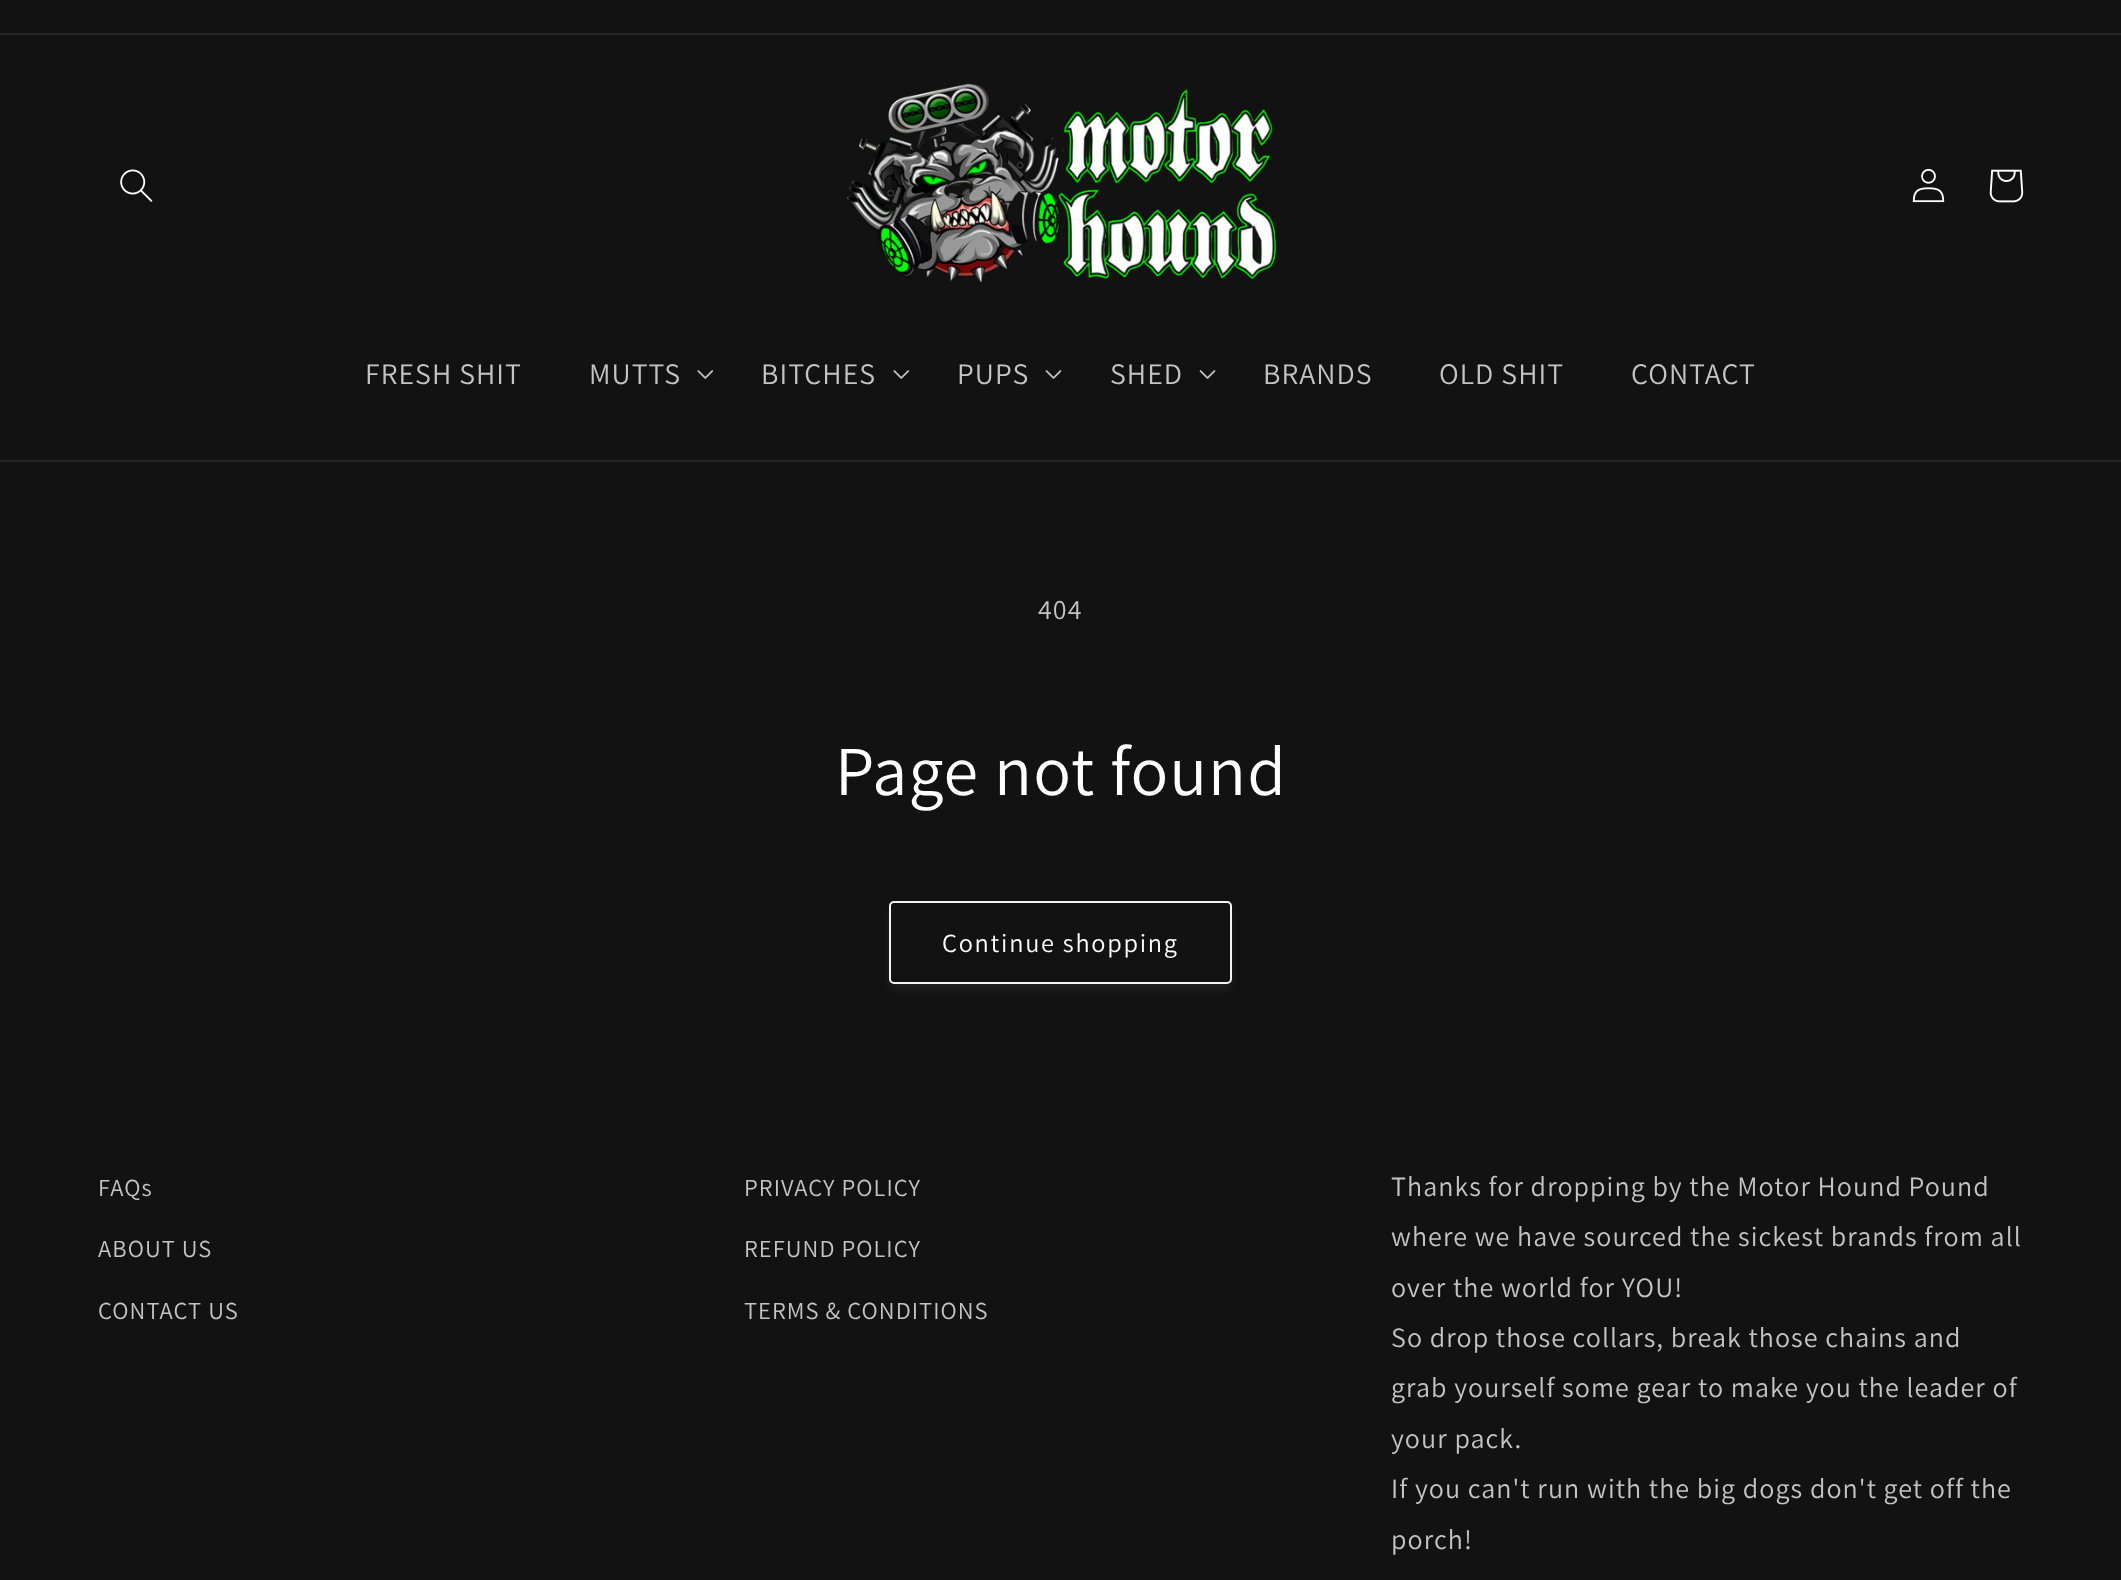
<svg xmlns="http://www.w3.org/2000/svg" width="2121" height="1580">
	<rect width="100%" height="100%" fill="#121212" />
	<rect x="0" y="33" width="2121" height="2" fill="#252525" />
	<rect x="0" y="460" width="2121" height="2" fill="#252525" />
	<image x="120" y="169" width="33" height="33" href="assets/img1.png" />
	<image x="847" y="83" width="429" height="200" href="assets/img2.png" />
	<image x="1912" y="168" width="33" height="35" href="assets/img3.png" />
	<image x="1989" y="169" width="35" height="34" href="assets/img4.png" />
	<g font-family="Assistant" font-size="29.75" letter-spacing="1.05" fill="#C4C4C4">
		<text x="365" y="384">FRESH SHIT</text>
		<text x="589" y="384">MUTTS</text>
	</g>
	<image x="697" y="370" width="16" height="9" href="assets/img5.png" />
	<text x="761" y="384" font-family="Assistant" font-size="29.75" letter-spacing="1.05" fill="#C4C4C4">BITCHES</text>
	<image x="893" y="370" width="16" height="9" href="assets/img5.png" />
	<text x="957" y="384" font-family="Assistant" font-size="29.75" letter-spacing="1.05" fill="#C4C4C4">PUPS</text>
	<image x="1045" y="370" width="17" height="9" href="assets/img6.png" />
	<text x="1110" y="384" font-family="Assistant" font-size="29.75" letter-spacing="1.05" fill="#C4C4C4">SHED</text>
	<image x="1199" y="370" width="17" height="9" href="assets/img6.png" />
	<g font-family="Assistant" font-size="29.75" letter-spacing="1.05" fill="#C4C4C4">
		<text x="1263" y="384">BRANDS</text>
		<text x="1439" y="384">OLD SHIT</text>
		<text x="1631" y="384">CONTACT</text>
	</g>
	<text x="1038" y="619" font-family="Assistant" font-size="28" letter-spacing="1.05" fill="#C4C4C4">404</text>
	<text x="835" y="795" font-family="Assistant" font-size="70" letter-spacing="1.05" fill="#FFFFFF">Page not found</text>
	<rect x="889" y="908" width="343" height="83" rx="5" fill="#FFFFFF" fill-opacity="0.05" filter="blur(4.5px)" />
	<rect x="889" y="901" width="343" height="83" rx="5" fill="#121212" />
	<rect x="890" y="902" width="341" height="81" rx="4" fill="none" stroke="#F3F3F3" stroke-width="2" />
	<text x="942" y="952" font-family="Assistant" font-size="26.25" letter-spacing="1.75" fill="#FFFFFF">Continue shopping</text>
	<g font-family="Assistant" font-size="24.5" letter-spacing="1.05" fill="#C4C4C4">
		<text x="98" y="1196">FAQs</text>
		<text x="98" y="1257">ABOUT US</text>
		<text x="98" y="1319">CONTACT US</text>
		<text x="744" y="1196">PRIVACY POLICY</text>
		<text x="744" y="1257">REFUND POLICY</text>
		<text x="744" y="1319">TERMS &amp; CONDITIONS</text>
	</g>
	<g font-family="Assistant" font-size="28" letter-spacing="1.05" fill="#C4C4C4">
		<text x="1391" y="1196">Thanks for dropping by the Motor Hound Pound</text>
		<text x="1391" y="1246">where we have sourced the sickest brands from all</text>
		<text x="1391" y="1297">over the world for YOU!</text>
		<text x="1391" y="1347">So drop those collars, break those chains and</text>
		<text x="1391" y="1397">grab yourself some gear to make you the leader of</text>
		<text x="1391" y="1448">your pack.</text>
		<text x="1391" y="1498">If you can't run with the big dogs don't get off the</text>
		<text x="1391" y="1549">porch!</text>
	</g>
</svg>
